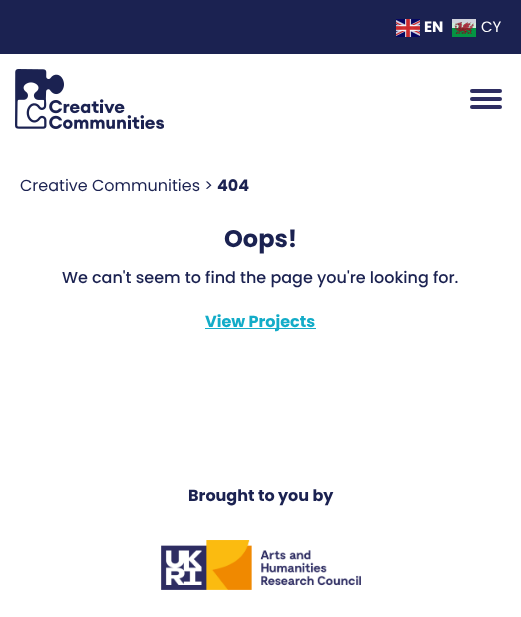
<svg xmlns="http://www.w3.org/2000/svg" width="521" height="617">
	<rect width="100%" height="100%" fill="#FFFFFF" />
	<rect x="0" y="0" width="521" height="54" fill="#1B2251" />
	<image x="396" y="19" width="24" height="18" href="assets/img1.png" />
	<text x="424" y="32" font-family="Poppins" font-size="15" font-weight="700" fill="#FFFFFF">EN</text>
	<image x="452" y="19" width="24" height="18" href="assets/img2.png" />
	<text x="481" y="32" font-family="Poppins" font-size="15" fill="#FFFFFF">CY</text>
	<image x="15" y="69" width="149" height="60" href="assets/img3.png" />
	<rect x="470" y="89" width="32" height="4" rx="2" fill="#2E2D62" />
	<rect x="470" y="97" width="32" height="4" rx="2" fill="#2E2D62" />
	<rect x="470" y="105" width="32" height="4" rx="2" fill="#2E2D62" />
	<text x="20" y="191" font-family="Poppins" font-size="16" fill="#1B2251">Creative Communities &gt;</text>
	<text x="217" y="191" font-family="Poppins" font-size="16" font-weight="700" fill="#1B2251">404</text>
	<text x="224" y="247" font-family="Poppins" font-size="24" font-weight="700" fill="#1B2251">Oops!</text>
	<text x="62" y="283" font-family="Poppins" font-size="16" font-weight="500" fill="#1B2251">We can't seem to find the page you're looking for.</text>
	<rect x="205" y="328" width="111" height="1" fill="#13ACC8" />
	<text x="205" y="327" font-family="Poppins" font-size="16" font-weight="700" fill="#13ACC8">View Projects</text>
	<text x="188" y="501" font-family="Poppins" font-size="16" font-weight="700" fill="#1B2251">Brought to you by</text>
	<image x="161" y="540" width="200" height="50" href="assets/img4.png" />
</svg>
